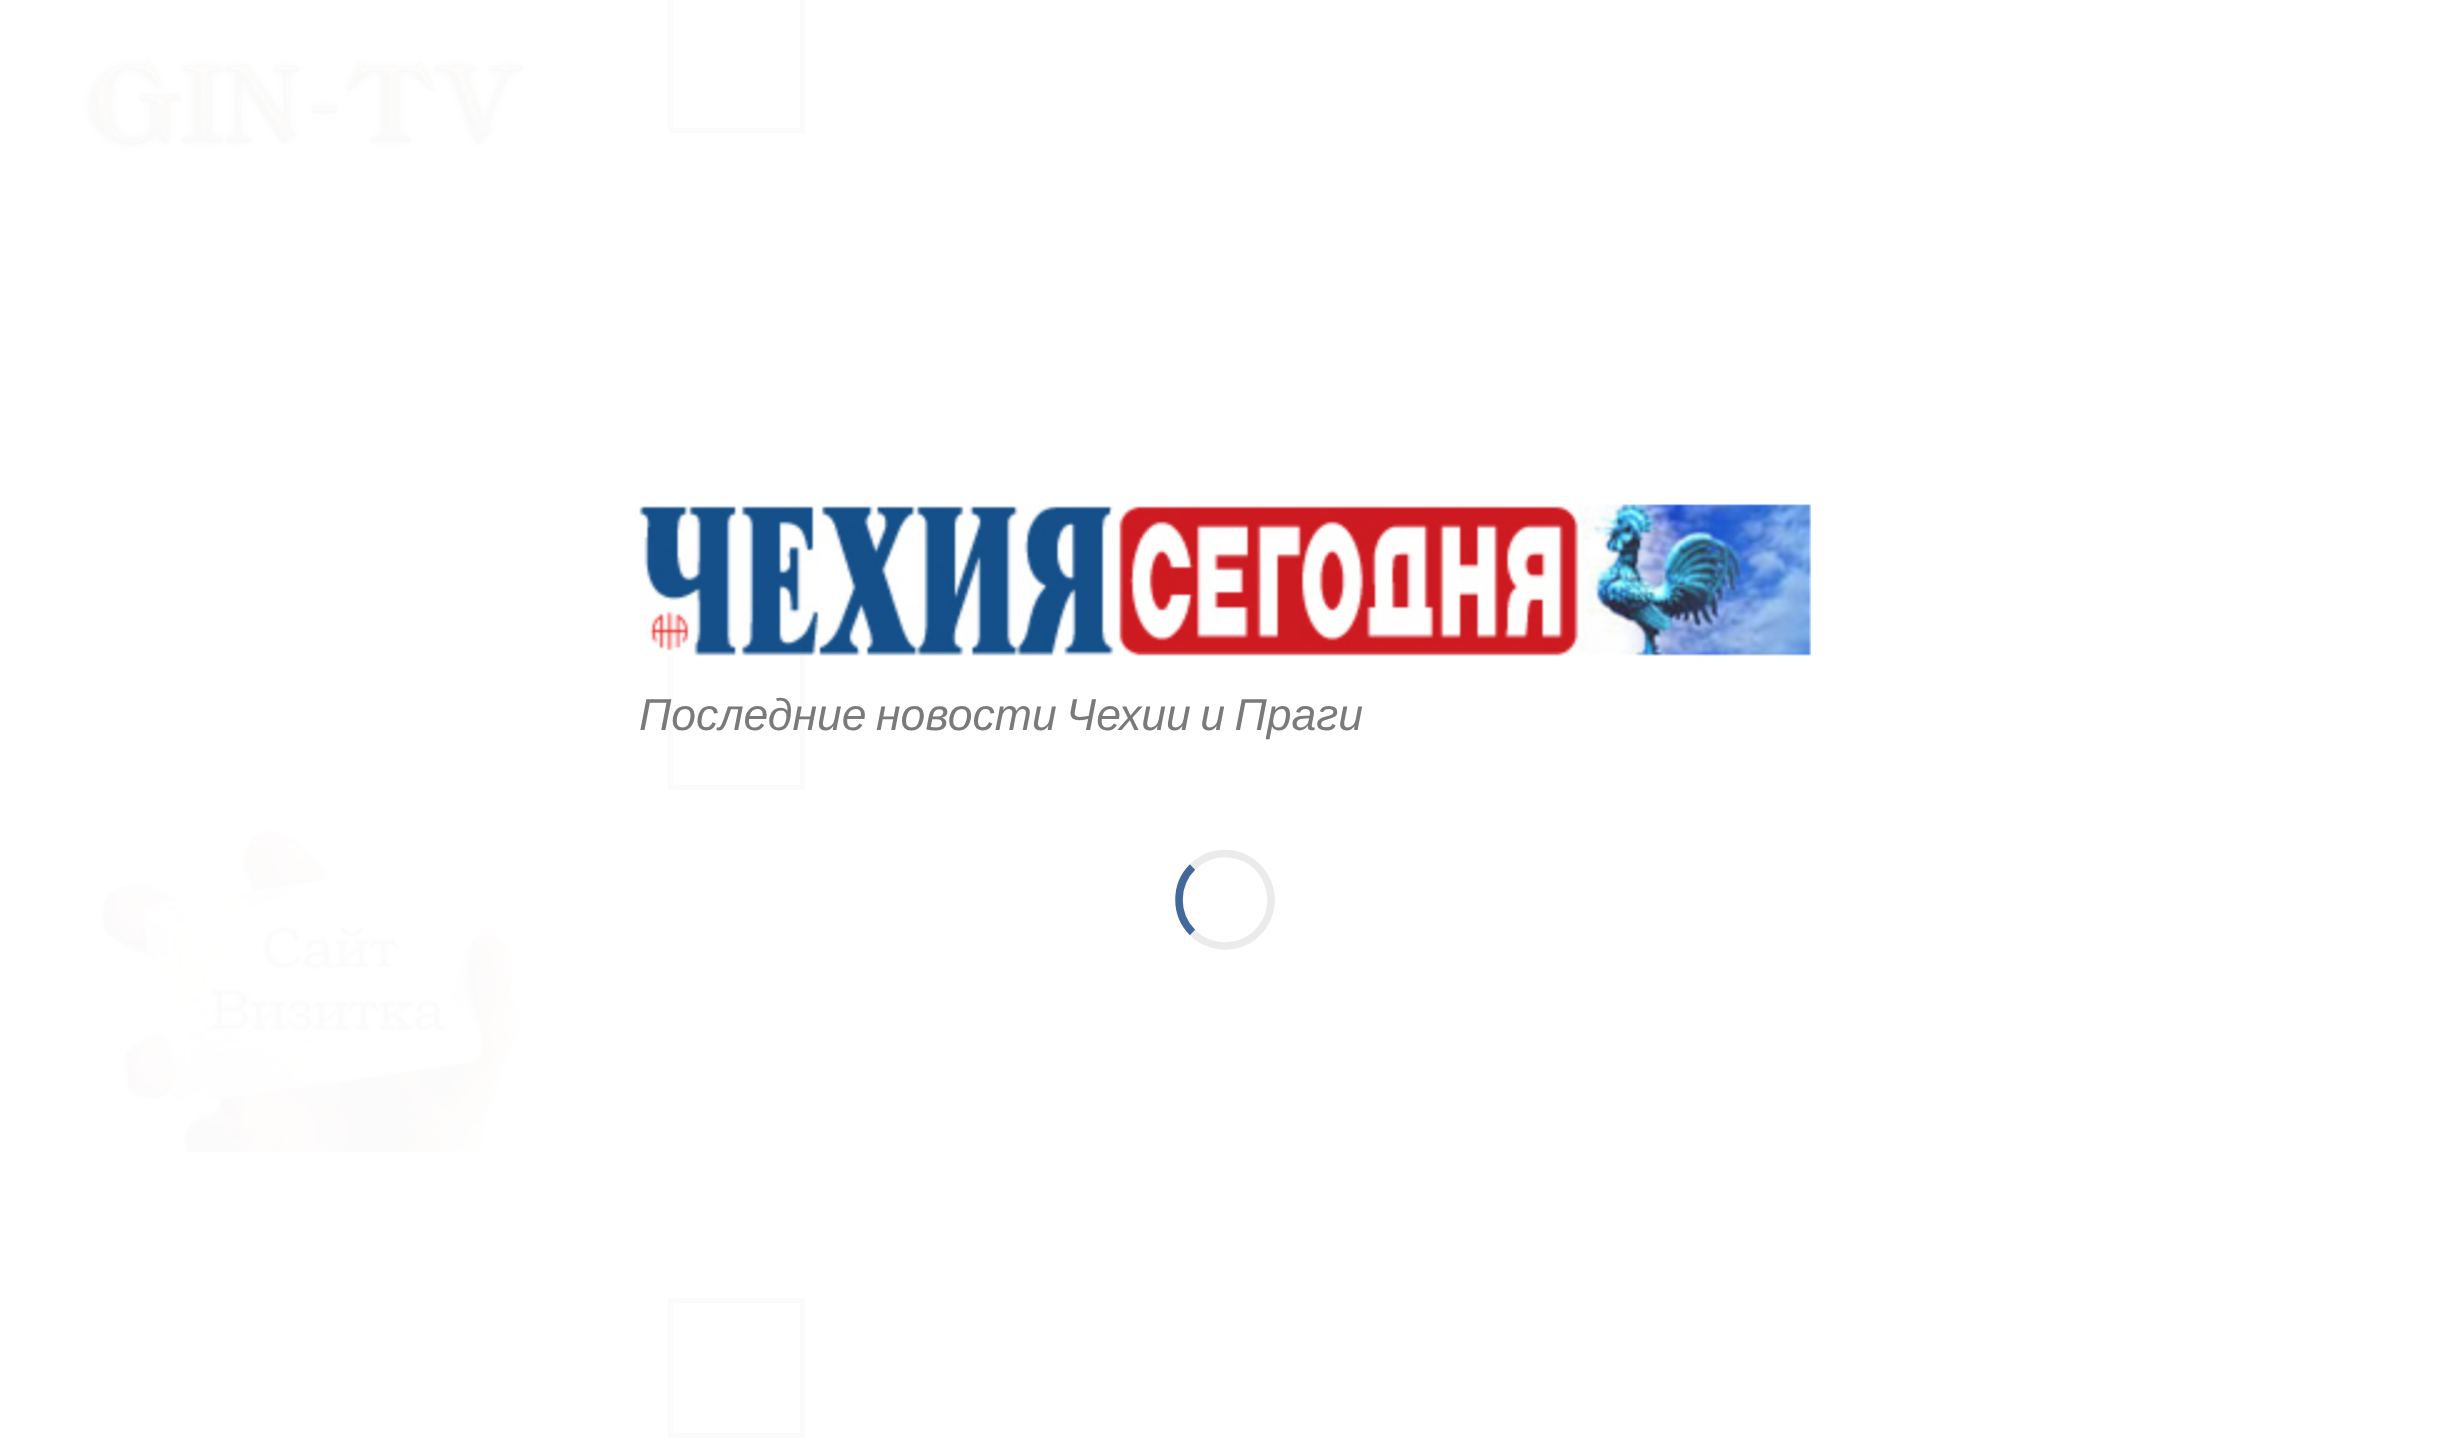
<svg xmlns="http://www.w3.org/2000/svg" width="2447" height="1455">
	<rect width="100%" height="100%" fill="#FFFFFF" />
	<image x="82" y="56" width="447" height="96" href="assets/img1.png" />
	<image x="93" y="826" width="435" height="326" href="assets/img2.png" />
	<rect x="670.5" y="-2.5" width="132" height="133" fill="none" stroke="#FAFBFD" stroke-width="5" />
	<rect x="670.5" y="652.5" width="132" height="135" fill="none" stroke="#FAFBFD" stroke-width="5" />
	<rect x="670.5" y="1300.5" width="132" height="135" fill="none" stroke="#FAFBFD" stroke-width="5" />
	<image x="639" y="504" width="1172" height="152" href="assets/img3.png" />
	<text x="639" y="730" word-spacing="-3" font-family="Liberation Sans" font-size="44.6" font-style="italic" fill="#7A7A7A">Последние новости Чехии и Праги</text>
	<path d="M1192.5 867C1201 858.5 1213 853.5 1225 853.5C1266 853.5 1286.5 903.5 1257.5 932.5C1251.5 939 1243 943.5 1234 945C1219 948 1203 943.5 1192.5 932.5" fill="none" stroke="#EBEBEB" stroke-width="7.5" />
	<path d="M1192.5 932.5C1174.5 914.5 1174.5 885 1192.5 867" fill="none" stroke="#42689C" stroke-width="7.5" />
</svg>
